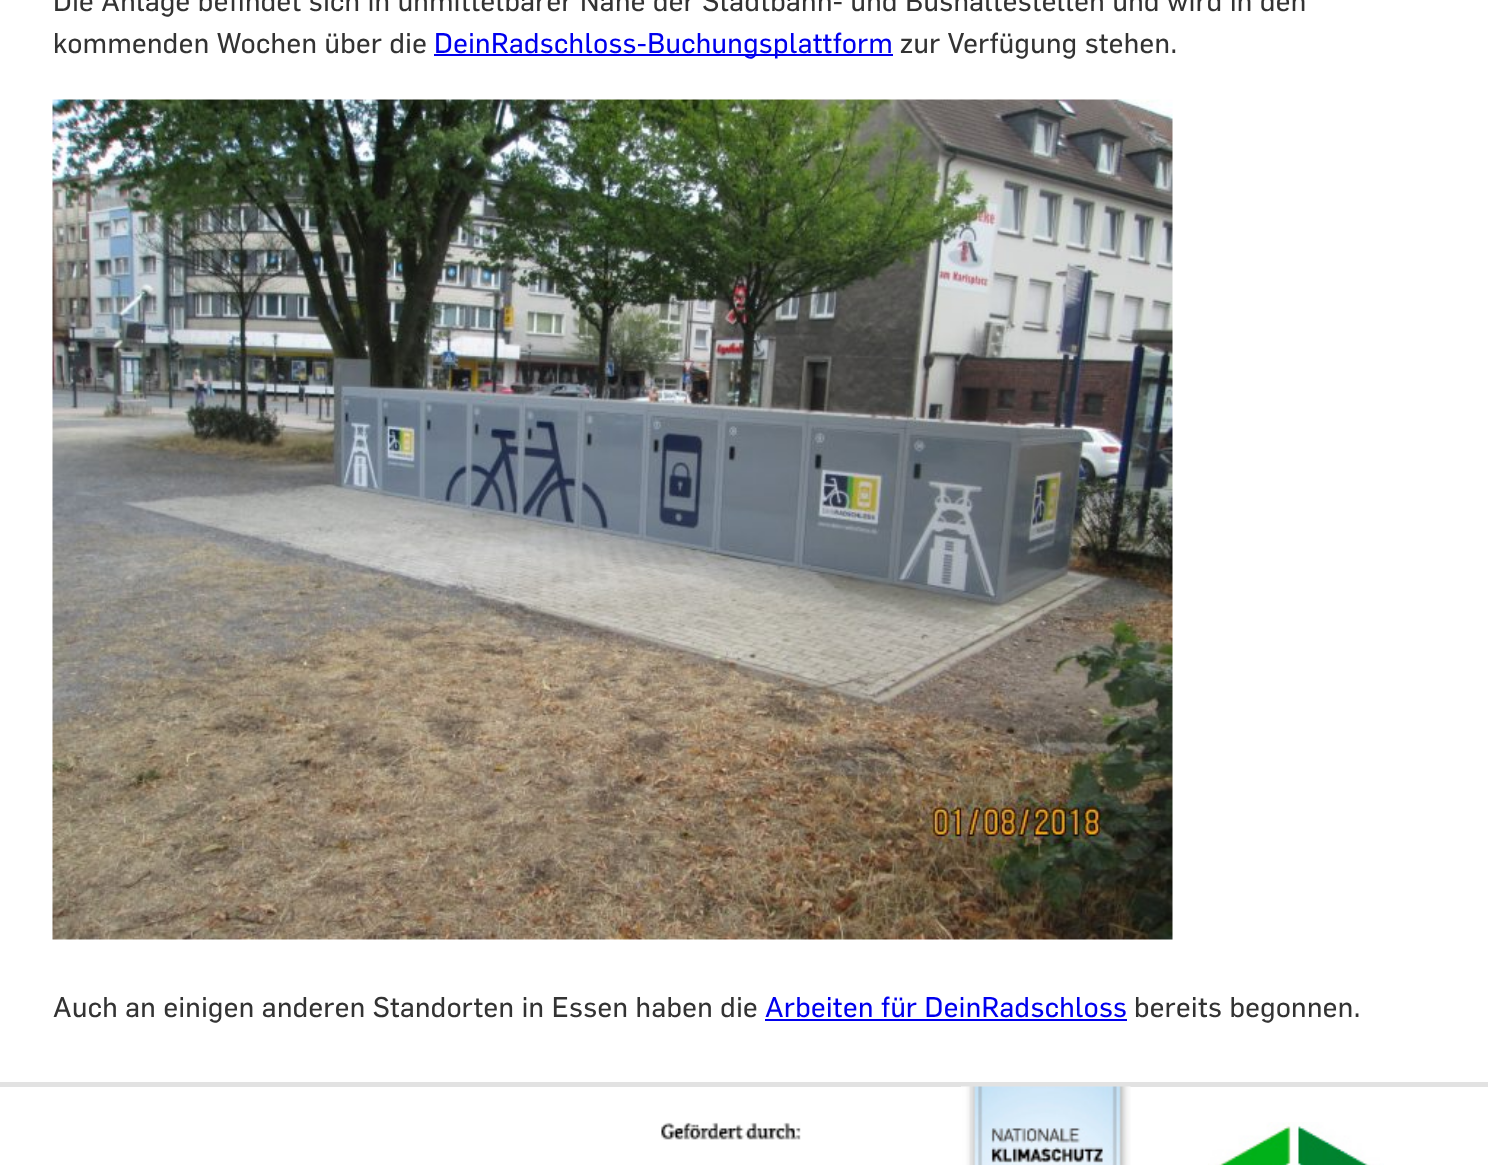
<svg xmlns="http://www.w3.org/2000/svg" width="1488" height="1165">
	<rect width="100%" height="100%" fill="#FFFFFF" />
	<g font-family="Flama" font-size="28" font-weight="600" letter-spacing="0.42" fill="#333333">
		<text x="53" y="11">Die Anlage befindet sich in unmittelbarer Nähe der Stadtbahn- und Bushaltestellen und wird in den</text>
		<text x="53" y="53">kommenden Wochen über die</text>
	</g>
	<rect x="434" y="54" width="459" height="2" fill="#0000EE" />
	<text x="434" y="53" font-family="Flama" font-size="28" font-weight="600" letter-spacing="0.42" fill="#0000EE">DeinRadschloss-Buchungsplattform</text>
	<text x="900" y="53" font-family="Flama" font-size="28" font-weight="600" letter-spacing="0.42" fill="#333333">zur Verfügung stehen.</text>
	<image x="52" y="99" width="1121" height="841" href="assets/img1.png" />
	<text x="53" y="1017" font-family="Flama" font-size="28" font-weight="600" letter-spacing="0.42" fill="#333333">Auch an einigen anderen Standorten in Essen haben die</text>
	<text x="765" y="1017" font-family="Flama" font-size="28" font-weight="600" letter-spacing="0.42" fill="#0000EE">Arbeiten für DeinRadschloss</text>
	<rect x="765" y="1019" width="362" height="2" fill="#0000EE" />
	<text x="1134" y="1017" font-family="Flama" font-size="28" font-weight="600" letter-spacing="0.42" fill="#333333">bereits begonnen.</text>
	<rect x="0" y="1082" width="1488" height="5" fill="#E2E2E2" />
	<image x="661" y="1122" width="140" height="18" href="assets/img2.png" />
	<image x="961" y="1086" width="170" height="79" href="assets/img3.png" />
	<image x="1208" y="1122" width="176" height="43" href="assets/img4.png" />
</svg>
